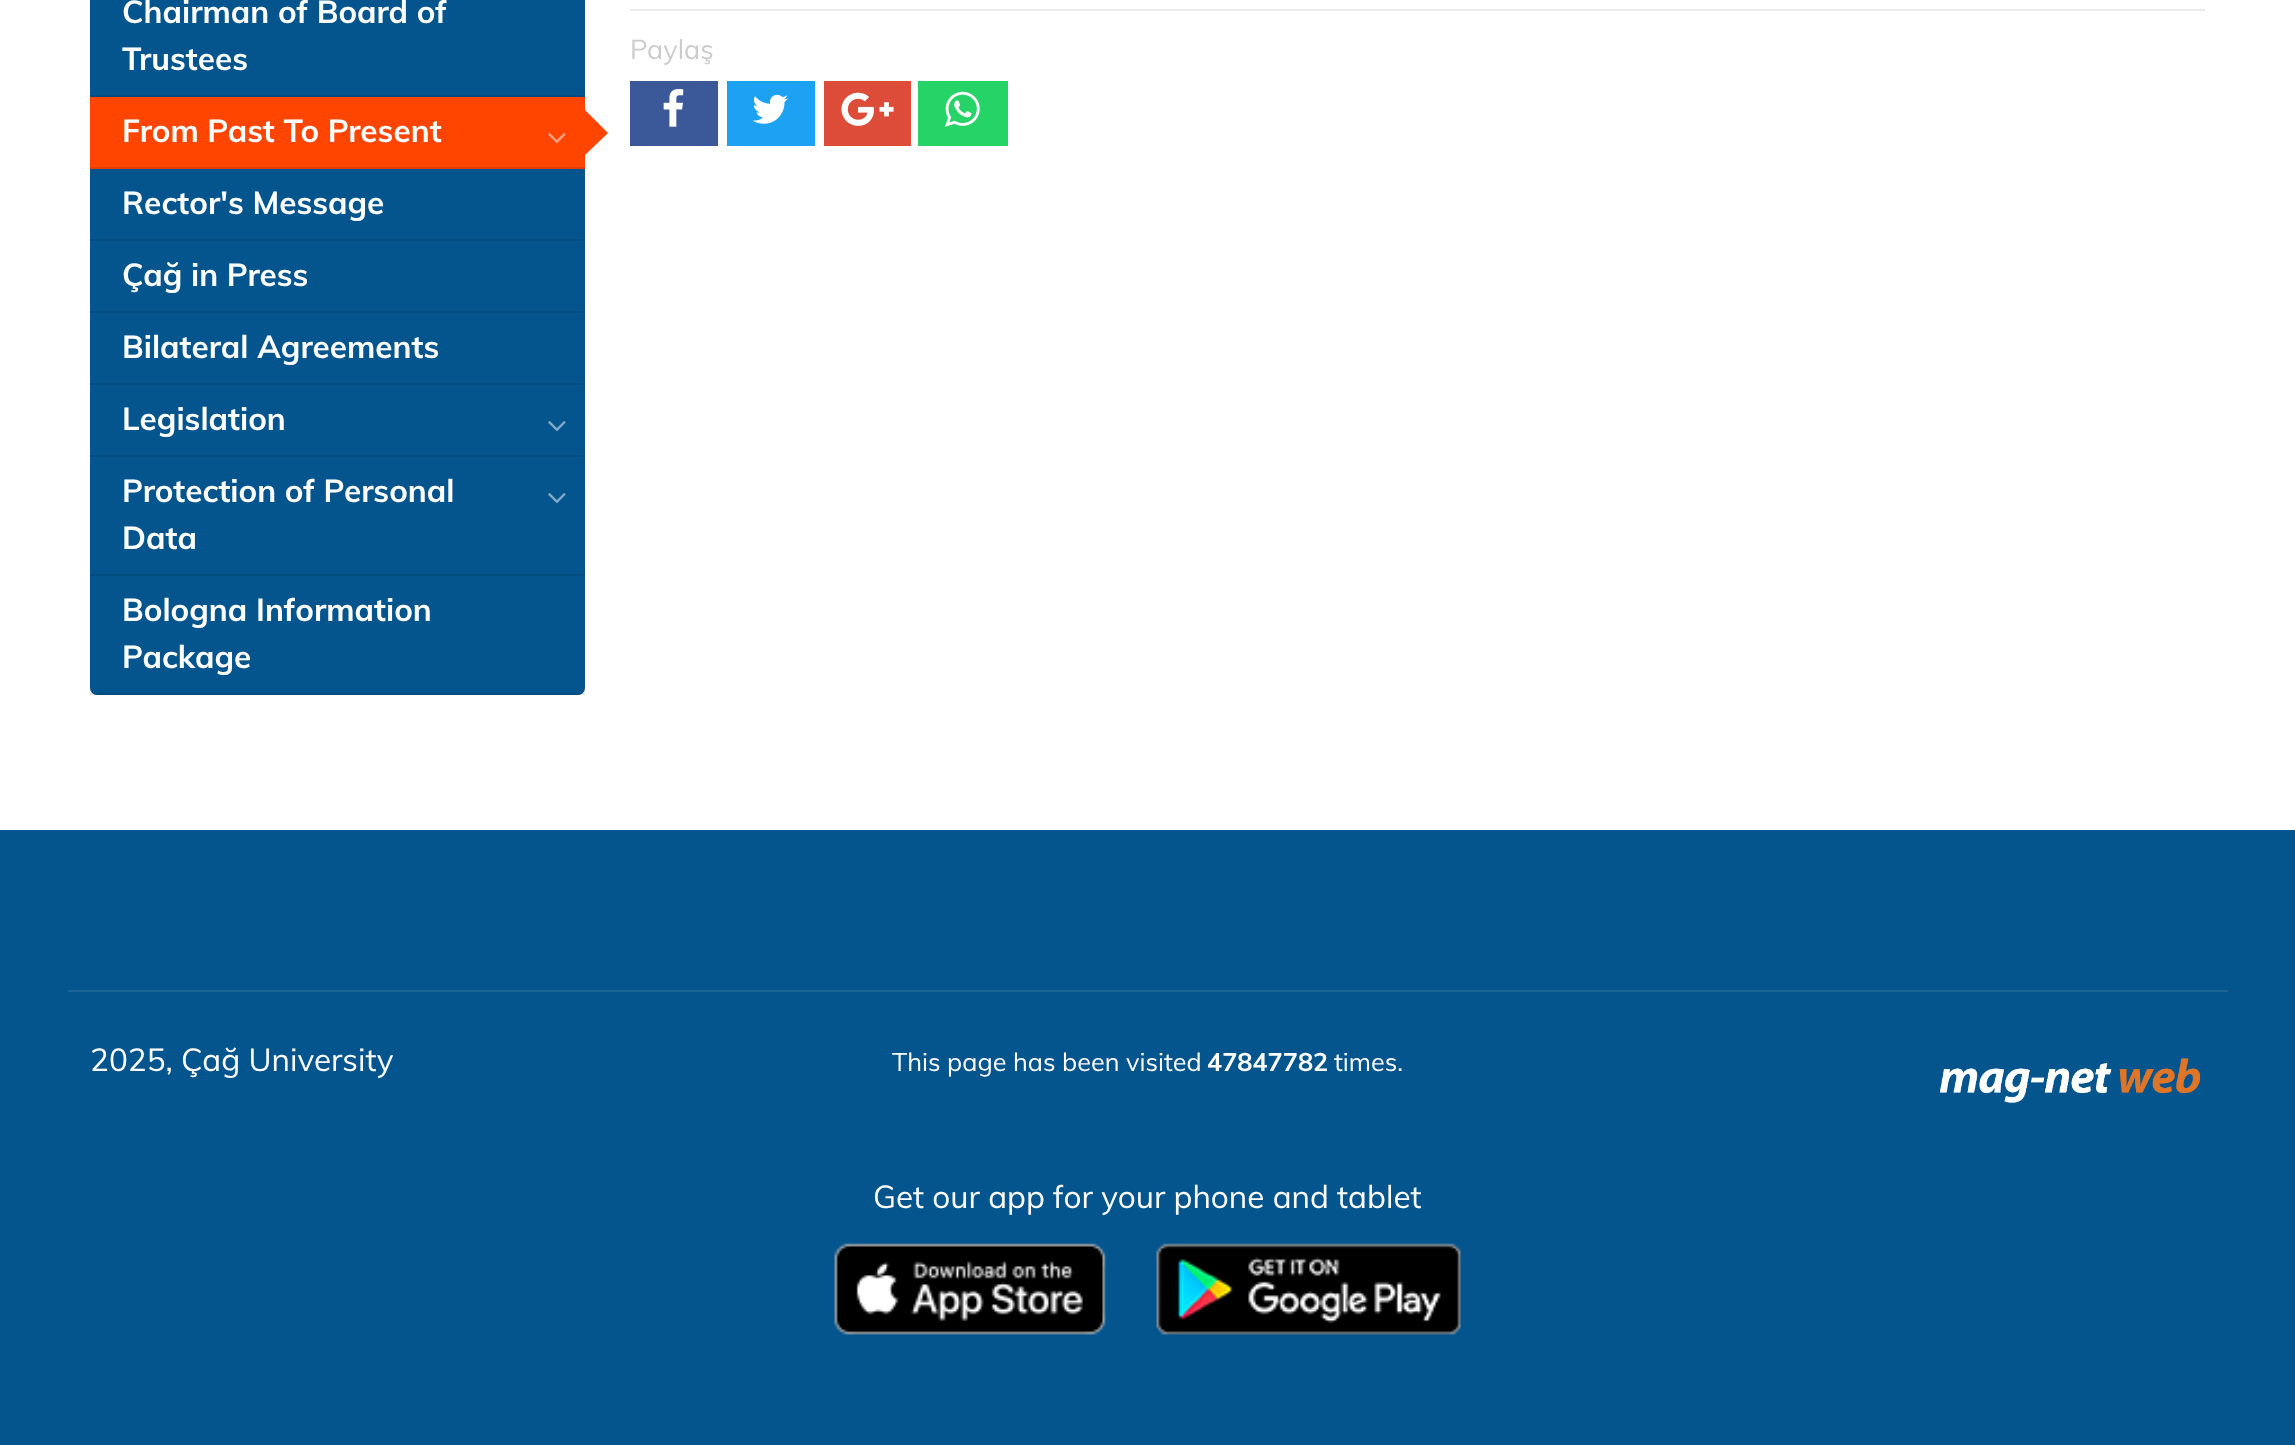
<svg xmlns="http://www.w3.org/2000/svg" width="2295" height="1445">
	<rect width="100%" height="100%" fill="#04548D" />
	<rect x="0" y="0" width="2295" height="830" fill="#FFFFFF" />
	<rect x="90" y="-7" width="495" height="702" rx="7" fill="#04548D" />
	<rect x="90" y="95" width="495" height="2" fill="#044C7F" />
	<g font-family="Muli" font-size="31.5" font-weight="700" fill="#FFFFFF">
		<text x="122" y="23">Chairman of Board of</text>
		<text x="122" y="70">Trustees</text>
	</g>
	<rect x="90" y="97" width="495" height="70" fill="#FF4500" />
	<rect x="90" y="167" width="495" height="2" fill="#E63E00" />
	<text x="122" y="142" font-family="Muli" font-size="31.5" font-weight="700" fill="#FFFFFF">From Past To Present</text>
	<image x="548" y="133" width="18" height="11" href="assets/img1.png" />
	<path d="M585 155V110L608 133Z" fill="#FF4500" />
	<rect x="90" y="239" width="495" height="2" fill="#044C7F" />
	<text x="122" y="214" font-family="Muli" font-size="31.5" font-weight="700" fill="#FFFFFF">Rector's Message</text>
	<rect x="90" y="311" width="495" height="2" fill="#044C7F" />
	<text x="122" y="286" font-family="Muli" font-size="31.5" font-weight="700" fill="#FFFFFF">Çağ in Press</text>
	<rect x="90" y="383" width="495" height="2" fill="#044C7F" />
	<text x="122" y="358" font-family="Muli" font-size="31.5" font-weight="700" fill="#FFFFFF">Bilateral Agreements</text>
	<rect x="90" y="455" width="495" height="2" fill="#044C7F" />
	<text x="122" y="430" font-family="Muli" font-size="31.5" font-weight="700" fill="#FFFFFF">Legislation</text>
	<image x="548" y="421" width="18" height="11" href="assets/img2.png" />
	<rect x="90" y="574" width="495" height="2" fill="#044C7F" />
	<text x="122" y="502" font-family="Muli" font-size="31.5" font-weight="700" fill="#FFFFFF">Protection of Personal</text>
	<image x="548" y="493" width="18" height="11" href="assets/img2.png" />
	<text x="122" y="549" font-family="Muli" font-size="31.5" font-weight="700" fill="#FFFFFF">Data</text>
	<rect x="90" y="693" width="495" height="2" fill="#000000" fill-opacity="0.1" />
	<g font-family="Muli" font-size="31.5" font-weight="700" fill="#FFFFFF">
		<text x="122" y="621">Bologna Information</text>
		<text x="122" y="668">Package</text>
	</g>
	<rect x="630" y="9" width="1575" height="2" fill="#EBEBEB" />
	<text x="630" y="59" font-family="Muli" font-size="27" fill="#CCCCCC">Paylaş</text>
	<rect x="630" y="81" width="88" height="65" fill="#3B5998" />
	<image x="663" y="89" width="21" height="38" href="assets/img3.png" />
	<rect x="727" y="81" width="88" height="65" fill="#1DA1F2" />
	<image x="752" y="94" width="36" height="30" href="assets/img4.png" />
	<rect x="824" y="81" width="87" height="65" fill="#DD4B39" />
	<image x="841" y="92" width="53" height="34" href="assets/img5.png" />
	<rect x="918" y="81" width="90" height="65" fill="#25D366" />
	<image x="945" y="91" width="35" height="36" href="assets/img6.png" />
	<rect x="68" y="990" width="2160" height="2" fill="#1D6598" />
	<text x="90" y="1071" font-family="Muli" font-size="31.5" fill="#FFFFFF">2025, Çağ University</text>
	<text x="892" y="1071" font-family="Muli" font-size="25.25" fill="#FFFFFF">This page has been visited</text>
	<text x="1207" y="1071" font-family="Muli" font-size="25.25" font-weight="700" fill="#FFFFFF">47847782</text>
	<text x="1334" y="1071" font-family="Muli" font-size="25.25" fill="#FFFFFF">times.</text>
	<image x="1940" y="1058" width="261" height="45" href="assets/img7.png" />
	<text x="873" y="1208" font-family="Muli" font-size="31.5" fill="#FFFFFF">Get our app for your phone and tablet</text>
	<image x="834" y="1243" width="272" height="92" href="assets/img8.png" />
	<image x="1156" y="1243" width="305" height="92" href="assets/img9.png" />
</svg>
